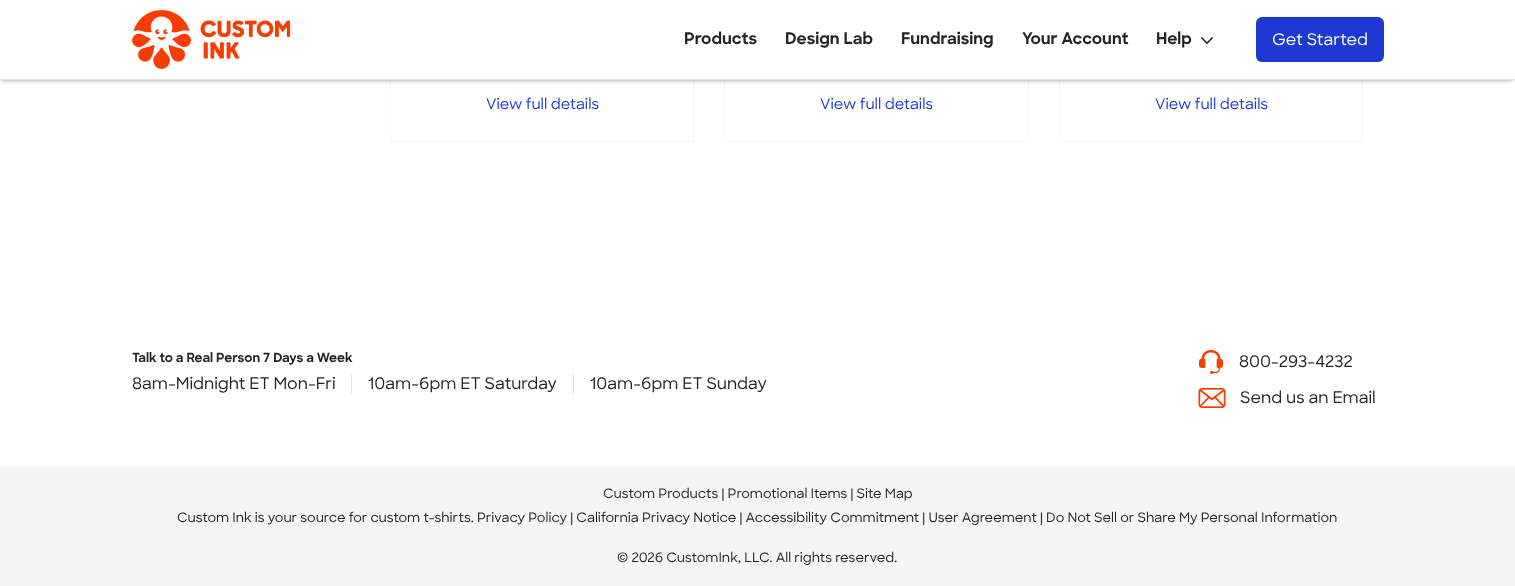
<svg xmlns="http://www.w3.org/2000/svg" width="1515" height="586">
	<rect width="100%" height="100%" fill="#FFFFFF" />
	<rect x="390.5" y="-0.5" width="303" height="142" fill="none" stroke="#F5F5F5" />
	<rect x="724.5" y="-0.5" width="304" height="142" fill="none" stroke="#F5F5F5" />
	<rect x="1059.5" y="-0.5" width="303" height="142" fill="none" stroke="#F5F5F5" />
	<rect x="2" y="4" width="1511" height="76" fill="#969696" filter="blur(2.5px)" />
	<rect x="0" y="0" width="1515" height="79" fill="#FFFFFF" />
	<rect x="0" y="79" width="1515" height="1" fill="#E3E3E3" />
	<image x="132" y="10" width="158" height="59" href="assets/img1.png" />
	<g font-family="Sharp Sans" font-size="16" font-weight="700" fill="#242424">
		<text x="684" y="44">Products</text>
		<text x="785" y="44">Design Lab</text>
		<text x="901" y="44">Fundraising</text>
		<text x="1022" y="44">Your Account</text>
		<text x="1156" y="44">Help</text>
	</g>
	<image x="1201" y="37" width="12" height="7" href="assets/img2.png" />
	<rect x="1256" y="17" width="128" height="45" rx="6" fill="#1E39D2" />
	<text x="1272" y="45" font-family="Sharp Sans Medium" font-size="16" font-weight="500" fill="#FFFFFF">Get Started</text>
	<g font-family="Sharp Sans Medium" font-size="14.5" font-weight="500" fill="#1E39D2">
		<text x="486" y="109">View full details</text>
		<text x="820" y="109">View full details</text>
		<text x="1155" y="109">View full details</text>
	</g>
	<text x="132" y="362" font-family="Sharp Sans" font-size="12.6" font-weight="700" fill="#242424">Talk to a Real Person 7 Days a Week</text>
	<image x="1199" y="350" width="24" height="24" href="assets/img3.png" />
	<text x="1239" y="367" font-family="Sharp Sans Medium" font-size="16" font-weight="500" fill="#242424">800-293-4232</text>
	<rect x="351" y="374" width="1" height="20" fill="#E3E3E3" />
	<text x="132" y="389" font-family="Sharp Sans Medium" font-size="16" font-weight="500" fill="#242424">8am-Midnight ET Mon-Fri</text>
	<rect x="573" y="374" width="1" height="20" fill="#E3E3E3" />
	<g font-family="Sharp Sans Medium" font-size="16" font-weight="500" fill="#242424">
		<text x="368" y="389">10am-6pm ET Saturday</text>
		<text x="590" y="389">10am-6pm ET Sunday</text>
	</g>
	<image x="1198" y="388" width="28" height="20" href="assets/img4.png" />
	<text x="1240" y="403" font-family="Sharp Sans Medium" font-size="16" font-weight="500" fill="#242424">Send us an Email</text>
	<rect x="0" y="466" width="1515" height="120" fill="#F5F5F5" />
	<g font-family="Sharp Sans Medium" font-size="13" font-weight="500" fill="#242424">
		<text x="603" y="498">Custom Products | Promotional Items | Site Map</text>
		<text x="177" y="522">Custom Ink is your source for custom t-shirts. Privacy Policy | California Privacy Notice | Accessibility Commitment | User Agreement | Do Not Sell or Share My Personal Information</text>
		<text x="617" y="562">© 2026 CustomInk, LLC. All rights reserved.</text>
	</g>
</svg>
